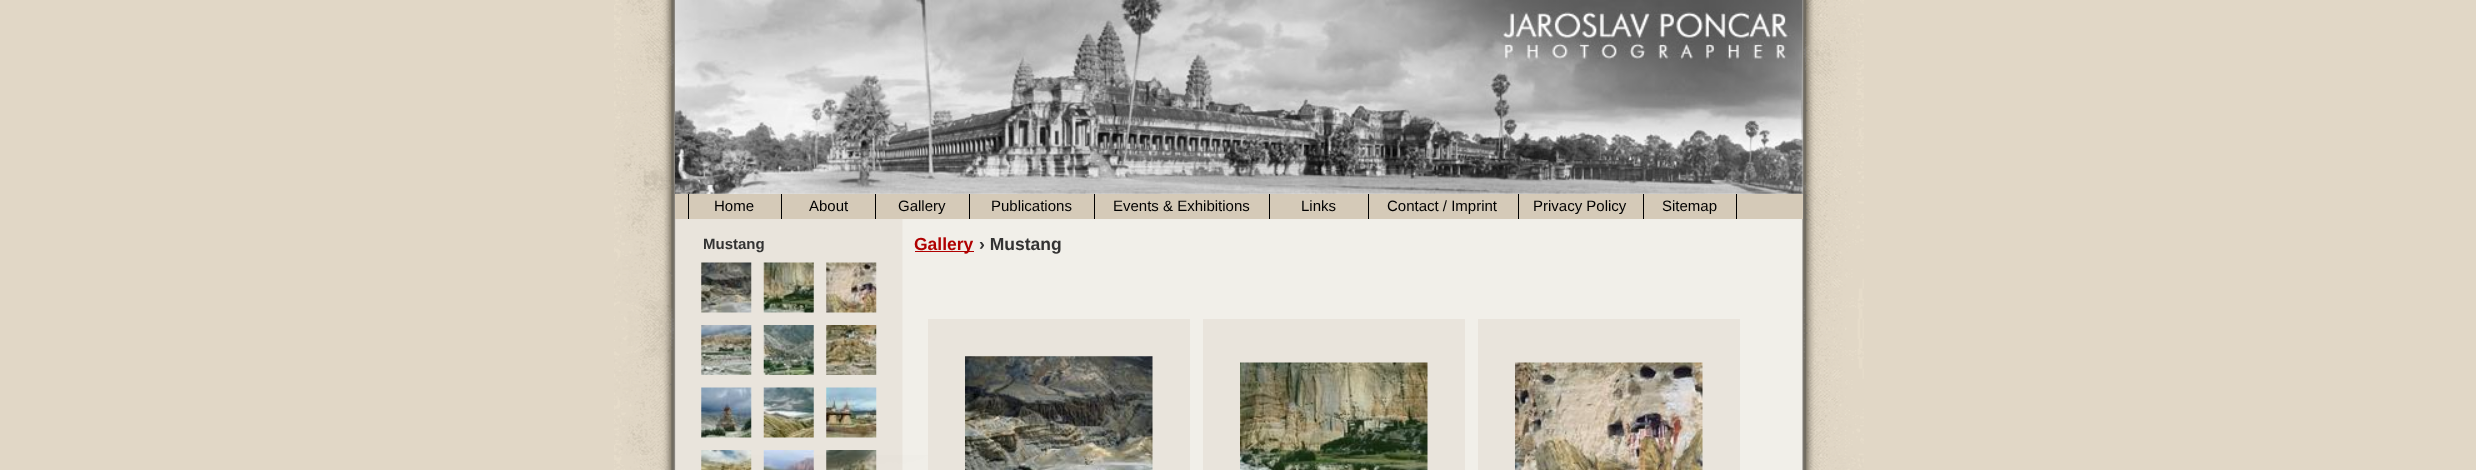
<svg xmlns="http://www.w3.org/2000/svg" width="2476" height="470">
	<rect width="100%" height="100%" fill="#E1D7C6" />
	<image x="614" y="0" width="1250" height="470" href="assets/img1.png" />
	<image x="675" y="0" width="1128" height="194" href="assets/img2.png" />
	<rect x="675" y="194" width="1128" height="25" fill="#D5CAB8" />
	<rect x="688" y="194" width="1" height="25" fill="#000000" />
	<text x="714" y="211" font-family="Liberation Sans" font-size="15" fill="#000000">Home</text>
	<rect x="781" y="194" width="1" height="25" fill="#000000" />
	<text x="809" y="211" font-family="Liberation Sans" font-size="15" fill="#000000">About</text>
	<rect x="875" y="194" width="1" height="25" fill="#000000" />
	<text x="898" y="211" font-family="Liberation Sans" font-size="15" fill="#000000">Gallery</text>
	<rect x="969" y="194" width="1" height="25" fill="#000000" />
	<text x="991" y="211" font-family="Liberation Sans" font-size="15" fill="#000000">Publications</text>
	<rect x="1094" y="194" width="1" height="25" fill="#000000" />
	<text x="1113" y="211" font-family="Liberation Sans" font-size="15" fill="#000000">Events &amp; Exhibitions</text>
	<rect x="1269" y="194" width="1" height="25" fill="#000000" />
	<text x="1301" y="211" font-family="Liberation Sans" font-size="15" fill="#000000">Links</text>
	<rect x="1368" y="194" width="1" height="25" fill="#000000" />
	<text x="1387" y="211" font-family="Liberation Sans" font-size="15" fill="#000000">Contact / Imprint</text>
	<rect x="1518" y="194" width="1" height="25" fill="#000000" />
	<text x="1533" y="211" font-family="Liberation Sans" font-size="15" fill="#000000">Privacy Policy</text>
	<rect x="1643" y="194" width="1" height="25" fill="#000000" />
	<text x="1662" y="211" font-family="Liberation Sans" font-size="15" fill="#000000">Sitemap</text>
	<rect x="1736" y="194" width="1" height="25" fill="#000000" />
	<text x="703" y="249" font-family="Liberation Sans" font-size="15" font-weight="700" fill="#333333">Mustang</text>
	<image x="701" y="262" width="51" height="51" href="assets/img3.png" />
	<image x="763" y="262" width="51" height="51" href="assets/img4.png" />
	<image x="826" y="262" width="51" height="51" href="assets/img5.png" />
	<image x="701" y="325" width="51" height="50" href="assets/img6.png" />
	<image x="763" y="325" width="51" height="50" href="assets/img7.png" />
	<image x="826" y="325" width="51" height="50" href="assets/img8.png" />
	<image x="701" y="387" width="51" height="51" href="assets/img9.png" />
	<image x="763" y="387" width="51" height="51" href="assets/img10.png" />
	<image x="826" y="387" width="51" height="51" href="assets/img11.png" />
	<image x="701" y="450" width="51" height="20" href="assets/img12.png" />
	<image x="763" y="450" width="51" height="20" href="assets/img13.png" />
	<image x="826" y="450" width="51" height="20" href="assets/img14.png" />
	<rect x="915" y="251" width="59" height="1" fill="#B00000" />
	<text x="914" y="250" font-family="Liberation Sans" font-size="17.5" font-weight="700" fill="#B00000">Gallery</text>
	<text x="979" y="250" font-family="Liberation Sans" font-size="17.5" font-weight="700" fill="#333333">› Mustang</text>
	<rect x="928" y="319" width="262" height="151" fill="#E9E4DC" />
	<image x="965" y="356" width="188" height="114" href="assets/img15.png" />
	<rect x="1203" y="319" width="262" height="151" fill="#E9E4DC" />
	<image x="1240" y="362" width="188" height="108" href="assets/img16.png" />
	<rect x="1478" y="319" width="262" height="151" fill="#E9E4DC" />
	<image x="1515" y="362" width="188" height="108" href="assets/img17.png" />
</svg>
